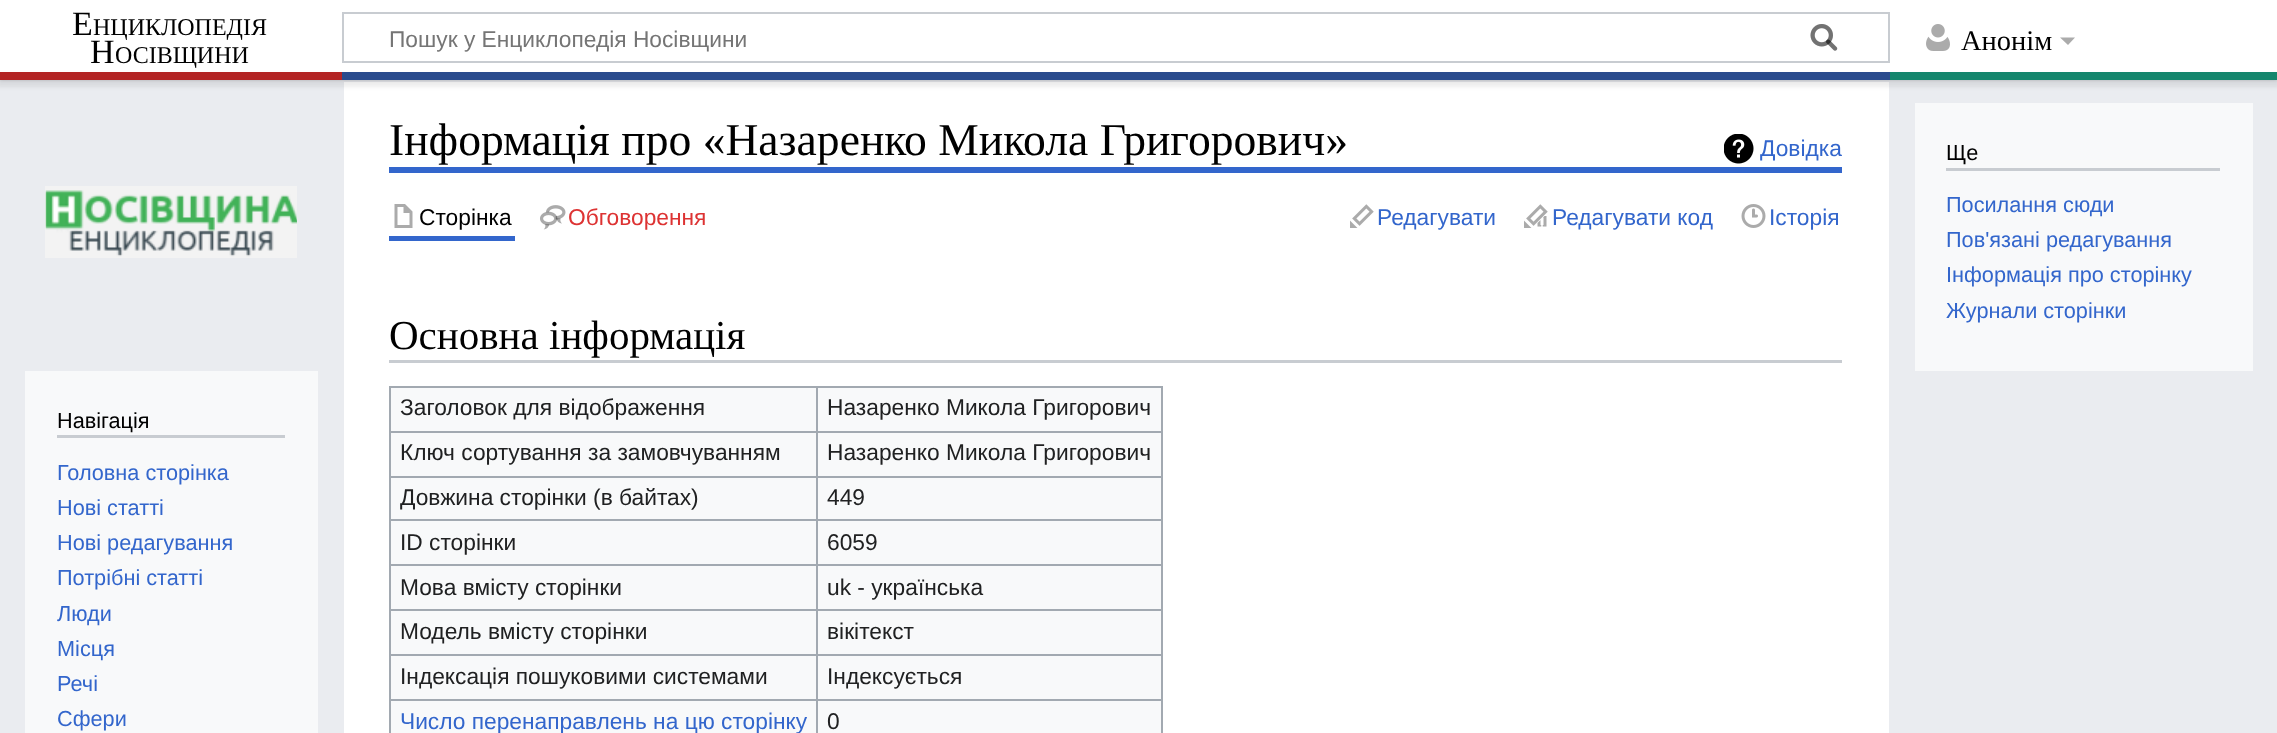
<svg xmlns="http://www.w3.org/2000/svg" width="2277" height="733">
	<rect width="100%" height="100%" fill="#EAECF0" />
	<rect x="344" y="82" width="1545" height="651" fill="#FFFFFF" />
	<rect x="0" y="72" width="2277" height="8" fill="#000000" fill-opacity="0.2" filter="blur(1.5px)" />
	<rect x="-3" y="74" width="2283" height="13" fill="#000000" fill-opacity="0.07" filter="blur(2px)" />
	<rect x="0" y="0" width="2277" height="72" fill="#FFFFFF" />
	<text x="72" y="35" font-family="Liberation Serif" font-size="34" fill="#000000">Е</text>
	<text x="93" y="35" font-family="Liberation Serif" font-size="24" fill="#000000">НЦИКЛОПЕДІЯ</text>
	<text x="90" y="63" font-family="Liberation Serif" font-size="34" fill="#000000">Н</text>
	<text x="115" y="63" font-family="Liberation Serif" font-size="24" fill="#000000">ОСІВЩИНИ</text>
	<rect x="343" y="13" width="1546" height="49" fill="none" stroke="#C8CCD1" stroke-width="2" />
	<image x="1810" y="24" width="28" height="27" href="assets/img1.png" />
	<text x="389" y="47" font-family="Liberation Sans" font-size="22.75" fill="#757575">Пошук у Енциклопедія Носівщини</text>
	<image x="1810" y="24" width="28" height="27" href="assets/img2.png" />
	<image x="1926" y="24" width="24" height="27" href="assets/img3.png" />
	<text x="1961" y="50" font-family="Liberation Serif" font-size="28.5" fill="#000000">Анонім</text>
	<path d="M2075 37.5L2068 45L2060 37.5Z" fill="#ABABAB" />
	<rect x="0" y="72" width="342" height="8" fill="#B32424" />
	<rect x="342" y="72" width="1548" height="8" fill="#2A4B8D" />
	<rect x="1890" y="72" width="387" height="8" fill="#14866D" />
	<rect x="389" y="167" width="1453" height="6" fill="#3366CC" />
	<text x="389" y="155" font-family="Liberation Serif" font-size="45.6" fill="#000000">Інформація про «Назаренко Микола Григорович»</text>
	<image x="1724" y="134" width="30" height="30" href="assets/img4.png" />
	<text x="1760" y="156" font-family="Liberation Sans" font-size="22.75" fill="#3366CC">Довідка</text>
	<rect x="389" y="236" width="126" height="5" fill="#3366CC" />
	<image x="394" y="204" width="19" height="24" href="assets/img5.png" />
	<text x="419" y="225" font-family="Liberation Sans" font-size="22.75" fill="#000000">Сторінка</text>
	<image x="540" y="205" width="26" height="25" href="assets/img6.png" />
	<text x="568" y="225" font-family="Liberation Sans" font-size="22.75" fill="#DD3333">Обговорення</text>
	<image x="1350" y="204" width="24" height="24" href="assets/img7.png" />
	<text x="1377" y="225" font-family="Liberation Sans" font-size="22.75" fill="#3366CC">Редагувати</text>
	<image x="1524" y="204" width="24" height="24" href="assets/img8.png" />
	<text x="1552" y="225" font-family="Liberation Sans" font-size="22.75" fill="#3366CC">Редагувати код</text>
	<image x="1741" y="204" width="25" height="24" href="assets/img9.png" />
	<text x="1769" y="225" font-family="Liberation Sans" font-size="22.75" fill="#3366CC">Історія</text>
	<rect x="389" y="360" width="1453" height="3" fill="#C8CCD1" />
	<text x="389" y="349" font-family="Liberation Serif" font-size="41" fill="#000000">Основна інформація</text>
	<rect x="391" y="388" width="770" height="345" fill="#F8F9FA" />
	<rect x="389" y="386" width="774" height="2" fill="#A2A9B1" />
	<rect x="1161" y="386" width="2" height="347" fill="#A2A9B1" />
	<rect x="389" y="386" width="2" height="347" fill="#A2A9B1" />
	<text x="400" y="415" font-family="Liberation Sans" font-size="22.75" fill="#202122">Заголовок для відображення</text>
	<rect x="816" y="431" width="347" height="2" fill="#A2A9B1" />
	<rect x="816" y="476" width="347" height="2" fill="#A2A9B1" />
	<rect x="816" y="519" width="347" height="2" fill="#A2A9B1" />
	<rect x="816" y="564" width="347" height="2" fill="#A2A9B1" />
	<rect x="816" y="609" width="347" height="2" fill="#A2A9B1" />
	<rect x="816" y="654" width="347" height="2" fill="#A2A9B1" />
	<rect x="816" y="699" width="347" height="2" fill="#A2A9B1" />
	<rect x="816" y="699" width="2" height="34" fill="#A2A9B1" />
	<rect x="389" y="699" width="429" height="2" fill="#A2A9B1" />
	<rect x="816" y="654" width="2" height="47" fill="#A2A9B1" />
	<rect x="389" y="654" width="429" height="2" fill="#A2A9B1" />
	<rect x="816" y="609" width="2" height="47" fill="#A2A9B1" />
	<rect x="389" y="609" width="429" height="2" fill="#A2A9B1" />
	<rect x="816" y="564" width="2" height="47" fill="#A2A9B1" />
	<rect x="389" y="564" width="429" height="2" fill="#A2A9B1" />
	<rect x="816" y="519" width="2" height="47" fill="#A2A9B1" />
	<rect x="389" y="519" width="429" height="2" fill="#A2A9B1" />
	<rect x="816" y="476" width="2" height="45" fill="#A2A9B1" />
	<rect x="389" y="476" width="429" height="2" fill="#A2A9B1" />
	<rect x="816" y="431" width="2" height="46" fill="#A2A9B1" />
	<rect x="389" y="431" width="429" height="2" fill="#A2A9B1" />
	<rect x="816" y="386" width="2" height="46" fill="#A2A9B1" />
	<g font-family="Liberation Sans" font-size="22.75" fill="#202122">
		<text x="827" y="415">Назаренко Микола Григорович</text>
		<text x="400" y="460">Ключ сортування за замовчуванням</text>
		<text x="827" y="460">Назаренко Микола Григорович</text>
		<text x="400" y="505">Довжина сторінки (в байтах)</text>
		<text x="827" y="505">449</text>
		<text x="400" y="550">ID сторінки</text>
		<text x="827" y="550">6059</text>
		<text x="400" y="595">Мова вмісту сторінки</text>
		<text x="827" y="595">uk - українська</text>
		<text x="400" y="639">Модель вмісту сторінки</text>
		<text x="827" y="639">вікітекст</text>
		<text x="400" y="684">Індексація пошуковими системами</text>
		<text x="827" y="684">Індексується</text>
	</g>
	<text x="400" y="729" font-family="Liberation Sans" font-size="22.75" fill="#3366CC">Число перенаправлень на цю сторінку</text>
	<text x="827" y="729" font-family="Liberation Sans" font-size="22.75" fill="#202122">0</text>
	<rect x="1915" y="103" width="338" height="268" fill="#F8F9FA" />
	<rect x="1946" y="168" width="274" height="3" fill="#C8CCD1" />
	<text x="1946" y="160" font-family="Liberation Sans" font-size="21.7" fill="#000000">Ще</text>
	<g font-family="Liberation Sans" font-size="21.7" fill="#3366CC">
		<text x="1946" y="212">Посилання сюди</text>
		<text x="1946" y="247">Пов'язані редагування</text>
		<text x="1946" y="282">Інформація про сторінку</text>
		<text x="1946" y="318">Журнали сторінки</text>
	</g>
	<image x="45" y="186" width="252" height="72" href="assets/img10.png" />
	<rect x="25" y="371" width="293" height="362" fill="#F8F9FA" />
	<rect x="57" y="435" width="228" height="3" fill="#C8CCD1" />
	<text x="57" y="428" font-family="Liberation Sans" font-size="21.7" fill="#000000">Навігація</text>
	<g font-family="Liberation Sans" font-size="21.7" fill="#3366CC">
		<text x="57" y="480">Головна сторінка</text>
		<text x="57" y="515">Нові статті</text>
		<text x="57" y="550">Нові редагування</text>
		<text x="57" y="585">Потрібні статті</text>
		<text x="57" y="621">Люди</text>
		<text x="57" y="656">Місця</text>
		<text x="57" y="691">Речі</text>
		<text x="57" y="726">Сфери</text>
	</g>
</svg>
